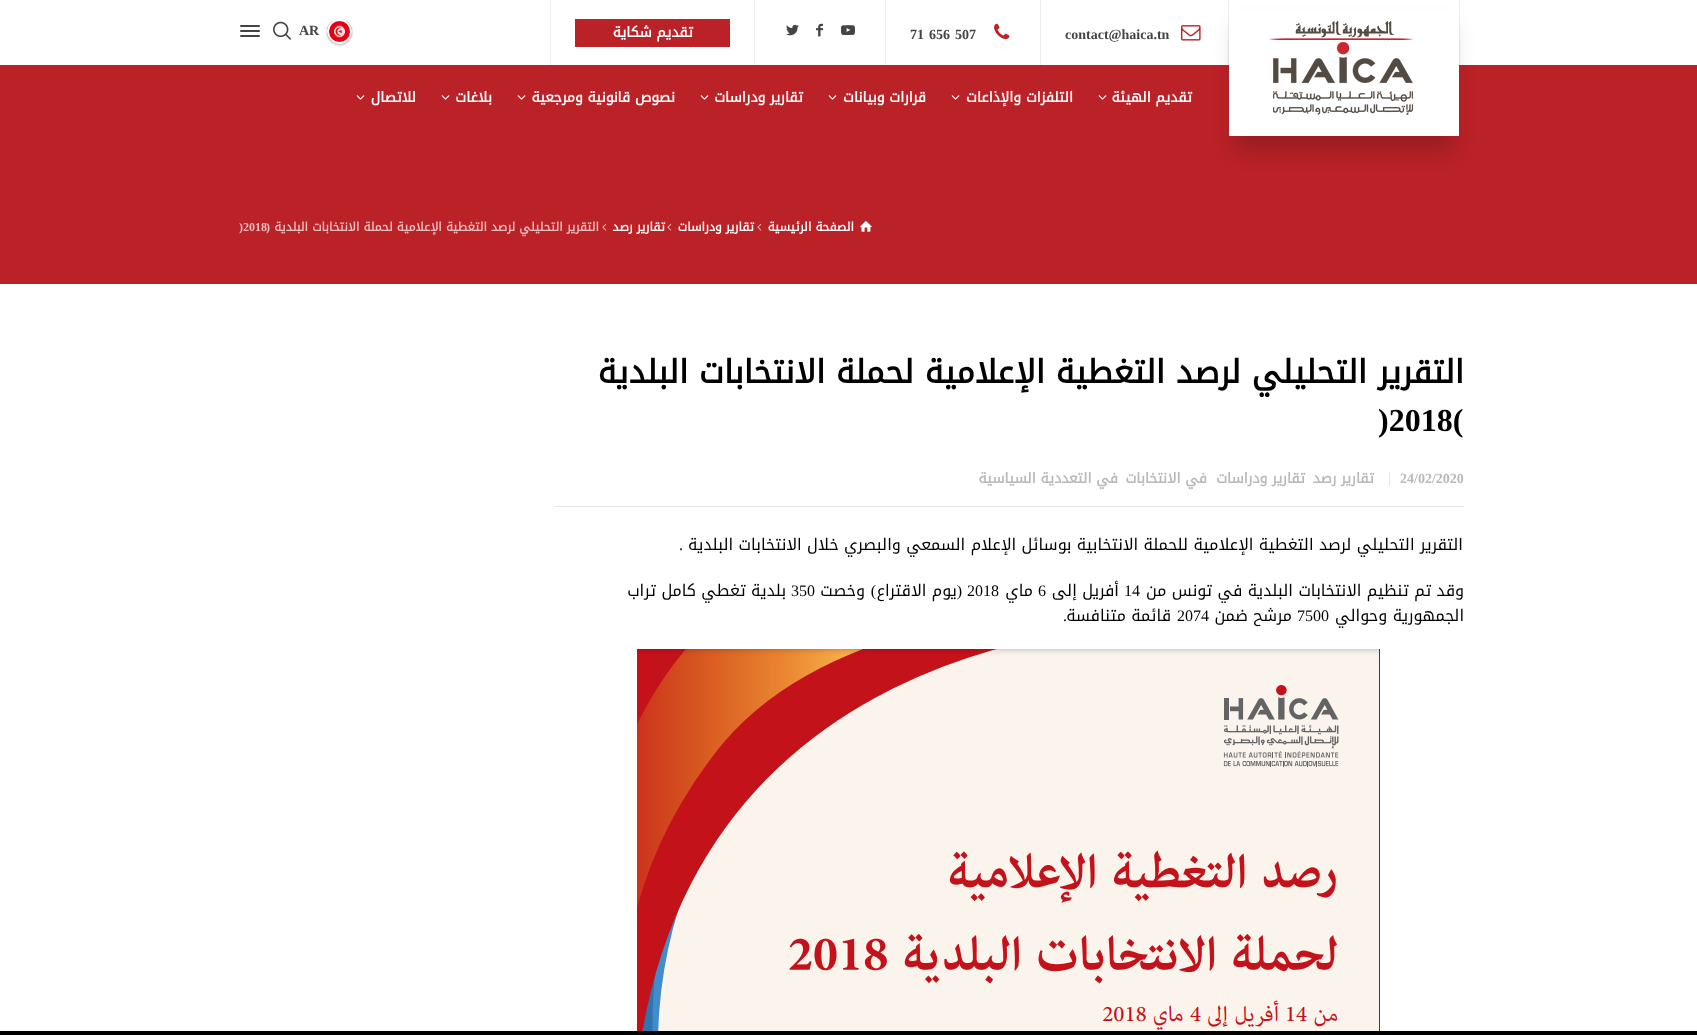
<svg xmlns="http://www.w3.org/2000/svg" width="1697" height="1035">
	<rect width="100%" height="100%" fill="#FFFFFF" />
	<rect x="0" y="65" width="1697" height="219" fill="#BA2227" />
	<rect x="1234" y="25" width="220" height="126" fill="#000000" fill-opacity="0.17" filter="blur(9.5px)" />
	<rect x="1229" y="10" width="230" height="126" fill="#FFFFFF" />
	<rect x="1459" y="0" width="1" height="65" fill="#000000" fill-opacity="0.07" />
	<image x="1269" y="21" width="144" height="96" href="assets/img1.png" />
	<rect x="1228" y="0" width="1" height="65" fill="#000000" fill-opacity="0.07" />
	<rect x="1040" y="0" width="1" height="65" fill="#EDEDED" />
	<image x="1181" y="25" width="20" height="16" href="assets/img2.png" />
	<text x="1065" y="39" font-family="Liberation Serif" font-size="14" font-weight="700" fill="#444444">contact@haica.tn</text>
	<rect x="885" y="0" width="1" height="65" fill="#EDEDED" />
	<image x="994" y="23" width="16" height="17" href="assets/img3.png" />
	<g font-family="Liberation Serif" font-size="14" font-weight="700" fill="#444444">
		<text x="955" y="39">507</text>
		<text x="929" y="39">656</text>
		<text x="910" y="39">71</text>
	</g>
	<rect x="754" y="0" width="1" height="65" fill="#EDEDED" />
	<image x="841" y="25" width="14" height="10" href="assets/img4.png" />
	<image x="816" y="23" width="7" height="14" href="assets/img5.png" />
	<image x="786" y="24" width="13" height="12" href="assets/img6.png" />
	<rect x="550" y="0" width="1" height="65" fill="#EDEDED" />
	<rect x="575" y="19" width="155" height="28" fill="#BA2227" />
	<text x="693" y="37" font-family="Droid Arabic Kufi" font-size="14" font-weight="700" direction="rtl" fill="#FFFFFF">تقديم شكاية</text>
	<rect x="327" y="20" width="25" height="25" rx="12.5" fill="#000000" fill-opacity="0.3" filter="blur(1px)" />
	<image x="327" y="21" width="25" height="21" href="assets/img7.png" />
	<circle cx="339.5" cy="31.5" r="11.5" fill="none" stroke="#FFFFFF" stroke-width="2" />
	<text x="299" y="35" font-family="Liberation Serif" font-size="14" font-weight="700" fill="#444444">AR</text>
	<image x="273" y="21" width="18" height="19" href="assets/img8.png" />
	<rect x="240" y="25" width="20" height="2" rx="1" fill="#444444" />
	<rect x="240" y="30" width="20" height="2" rx="1" fill="#444444" />
	<rect x="240" y="35" width="20" height="2" rx="1" fill="#444444" />
	<text x="1192" y="102" font-family="Droid Arabic Kufi" font-size="14" font-weight="700" direction="rtl" fill="#FFFFFF">تقديم الهيئة</text>
	<image x="1098" y="95" width="9" height="5" href="assets/img9.png" />
	<text x="1073" y="102" font-family="Droid Arabic Kufi" font-size="14" font-weight="700" direction="rtl" fill="#FFFFFF">التلفزات والإذاعات</text>
	<image x="951" y="95" width="9" height="5" href="assets/img9.png" />
	<text x="926" y="102" font-family="Droid Arabic Kufi" font-size="14" font-weight="700" direction="rtl" fill="#FFFFFF">قرارات وبيانات</text>
	<image x="828" y="95" width="9" height="5" href="assets/img9.png" />
	<text x="803" y="102" font-family="Droid Arabic Kufi" font-size="14" font-weight="700" direction="rtl" fill="#FFFFFF">تقارير ودراسات</text>
	<image x="700" y="95" width="9" height="5" href="assets/img9.png" />
	<text x="675" y="102" font-family="Droid Arabic Kufi" font-size="14" font-weight="700" direction="rtl" fill="#FFFFFF">نصوص قانونية ومرجعية</text>
	<image x="517" y="95" width="9" height="5" href="assets/img9.png" />
	<text x="492" y="102" font-family="Droid Arabic Kufi" font-size="14" font-weight="700" direction="rtl" fill="#FFFFFF">بلاغات</text>
	<image x="441" y="95" width="9" height="5" href="assets/img9.png" />
	<text x="416" y="102" font-family="Droid Arabic Kufi" font-size="14" font-weight="700" direction="rtl" fill="#FFFFFF">للاتصال</text>
	<image x="356" y="95" width="9" height="5" href="assets/img9.png" />
	<image x="860" y="221" width="12" height="11" href="assets/img10.png" />
	<text x="854" y="231" font-family="Droid Arabic Kufi" font-size="12" font-weight="700" direction="rtl" fill="#FFFFFF">الصفحة الرئيسية</text>
	<image x="757" y="224" width="5" height="7" href="assets/img11.png" />
	<text x="754" y="231" font-family="Droid Arabic Kufi" font-size="12" font-weight="700" direction="rtl" fill="#FFFFFF">تقارير ودراسات</text>
	<image x="667" y="224" width="5" height="7" href="assets/img11.png" />
	<text x="665" y="231" font-family="Droid Arabic Kufi" font-size="12" font-weight="700" direction="rtl" fill="#FFFFFF">تقارير رصد</text>
	<image x="602" y="224" width="5" height="7" href="assets/img11.png" />
	<text x="599" y="231" font-family="Droid Arabic Kufi" font-size="12" font-weight="700" direction="rtl" fill="#EABDBE">التقرير التحليلي لرصد التغطية الإعلامية لحملة الانتخابات البلدية</text>
	<text x="270" y="231" font-family="Liberation Serif" font-size="12" font-weight="700" direction="rtl" fill="#EABDBE">(</text>
	<text x="239" y="231" font-family="Liberation Serif" font-size="12" font-weight="700" fill="#EABDBE">)2018</text>
	<text x="1464" y="383" font-family="Droid Arabic Kufi" font-size="32" font-weight="700" direction="rtl" fill="#000000">التقرير التحليلي لرصد التغطية الإعلامية لحملة الانتخابات البلدية</text>
	<text x="1378" y="431" font-family="Liberation Serif" font-size="32" font-weight="700" fill="#000000">)2018(</text>
	<rect x="554" y="506" width="910" height="1" fill="#E8E8E8" />
	<rect x="1389" y="472" width="1" height="14" fill="#E8E8E8" />
	<text x="1400" y="483" font-family="Liberation Serif" font-size="14" font-weight="700" fill="#B9B9B9">24/02/2020</text>
	<g font-family="Droid Arabic Kufi" font-size="14" font-weight="700" direction="rtl" fill="#B9B9B9">
		<text x="1374" y="483">تقارير رصد</text>
		<text x="1305" y="483">تقارير ودراسات</text>
		<text x="1207" y="483">في الانتخابات</text>
		<text x="1118" y="483">في التعددية السياسية</text>
	</g>
	<text x="1463" y="550" font-family="Droid Arabic Kufi" font-size="16" direction="rtl" fill="#000000">التقرير التحليلي لرصد التغطية الإعلامية للحملة الانتخابية بوسائل الإعلام السمعي والبصري خلال الانتخابات البلدية</text>
	<text x="683" y="550" font-family="Liberation Serif" font-size="16" direction="rtl" fill="#000000">.</text>
	<text x="1464" y="596" font-family="Droid Arabic Kufi" font-size="16" direction="rtl" fill="#000000">وقد تم تنظيم الانتخابات البلدية في تونس من</text>
	<text x="1124" y="596" font-family="Liberation Serif" font-size="16" fill="#000000">14</text>
	<text x="1119" y="596" font-family="Droid Arabic Kufi" font-size="16" direction="rtl" fill="#000000">أفريل إلى</text>
	<text x="1038" y="596" font-family="Liberation Serif" font-size="16" fill="#000000">6</text>
	<text x="1033" y="596" font-family="Droid Arabic Kufi" font-size="16" direction="rtl" fill="#000000">ماي</text>
	<text x="967" y="596" font-family="Liberation Serif" font-size="16" fill="#000000">2018</text>
	<text x="962" y="596" font-family="Liberation Serif" font-size="16" direction="rtl" fill="#000000">(</text>
	<text x="957" y="596" font-family="Droid Arabic Kufi" font-size="16" direction="rtl" fill="#000000">يوم الاقتراع</text>
	<text x="876" y="596" font-family="Liberation Serif" font-size="16" direction="rtl" fill="#000000">)</text>
	<text x="865" y="596" font-family="Droid Arabic Kufi" font-size="16" direction="rtl" fill="#000000">وخصت</text>
	<text x="791" y="596" font-family="Liberation Serif" font-size="16" fill="#000000">350</text>
	<g font-family="Droid Arabic Kufi" font-size="16" direction="rtl" fill="#000000">
		<text x="786" y="596">بلدية تغطي كامل تراب</text>
		<text x="1464" y="621">الجمهورية وحوالي</text>
	</g>
	<text x="1297" y="621" font-family="Liberation Serif" font-size="16" fill="#000000">7500</text>
	<text x="1292" y="621" font-family="Droid Arabic Kufi" font-size="16" direction="rtl" fill="#000000">مرشح ضمن</text>
	<text x="1177" y="621" font-family="Liberation Serif" font-size="16" fill="#000000">2074</text>
	<text x="1171" y="621" font-family="Droid Arabic Kufi" font-size="16" direction="rtl" fill="#000000">قائمة متنافسة</text>
	<text x="1067" y="621" font-family="Liberation Serif" font-size="16" direction="rtl" fill="#000000">.</text>
	<image x="637" y="649" width="743" height="382" href="assets/img12.png" />
	<rect x="0" y="1031" width="1697" height="4" fill="#000000" />
</svg>
